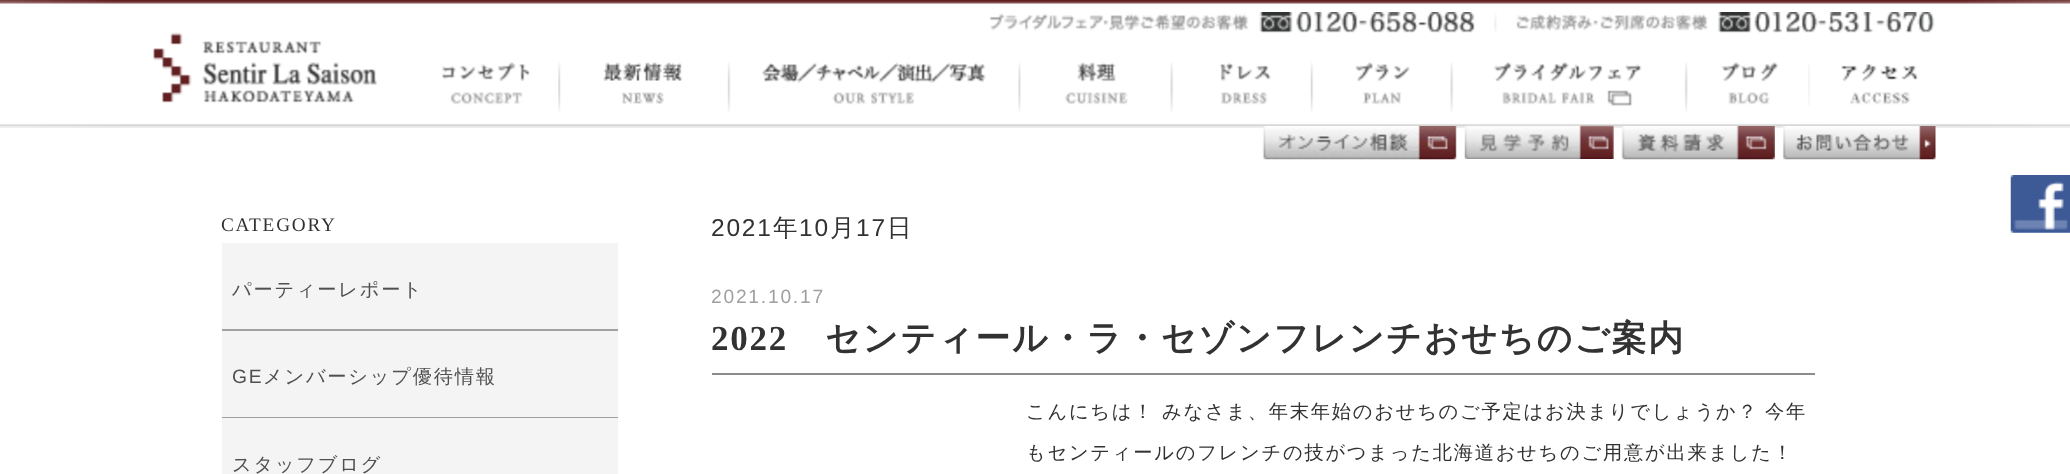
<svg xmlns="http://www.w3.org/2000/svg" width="2070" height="474">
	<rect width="100%" height="100%" fill="#FFFFFF" />
	<image x="0" y="0" width="2070" height="128" href="assets/img1.png" />
	<image x="990" y="12" width="945" height="21" href="assets/img2.png" />
	<image x="153" y="32" width="224" height="71" href="assets/img3.png" />
	<image x="442" y="62" width="88" height="43" href="assets/img4.png" />
	<image x="558" y="62" width="125" height="50" href="assets/img5.png" />
	<image x="727" y="62" width="259" height="50" href="assets/img6.png" />
	<image x="1018" y="62" width="110" height="51" href="assets/img7.png" />
	<image x="1170" y="62" width="101" height="50" href="assets/img8.png" />
	<image x="1310" y="62" width="100" height="51" href="assets/img9.png" />
	<image x="1450" y="62" width="192" height="50" href="assets/img10.png" />
	<image x="1684" y="62" width="95" height="50" href="assets/img11.png" />
	<image x="1808" y="63" width="110" height="43" href="assets/img12.png" />
	<image x="1262" y="126" width="195" height="34" href="assets/img13.png" />
	<image x="1464" y="125" width="150" height="34" href="assets/img14.png" />
	<image x="1621" y="126" width="154" height="34" href="assets/img15.png" />
	<image x="1782" y="126" width="154" height="34" href="assets/img16.png" />
	<image x="2010" y="175" width="60" height="58" href="assets/img17.png" />
	<text x="221" y="231" font-family="Liberation Serif" font-size="19.25" letter-spacing="1.75" fill="#323232">CATEGORY</text>
	<rect x="222" y="243" width="396" height="174" fill="#F4F4F4" />
	<rect x="222" y="329" width="396" height="2" fill="#A0A0A0" />
	<text x="232" y="296" font-family="WenQuanYi Zen Hei" font-size="19.25" font-weight="500" letter-spacing="1.75" fill="#505050">パーティーレポート</text>
	<rect x="222" y="417" width="396" height="1" fill="#A0A0A0" />
	<text x="232" y="383" font-family="Liberation Sans" font-size="19.25" letter-spacing="1.75" fill="#505050">GE</text>
	<text x="263" y="383" font-family="WenQuanYi Zen Hei" font-size="19.25" font-weight="500" letter-spacing="1.75" fill="#505050">メンバーシップ優待情報</text>
	<rect x="222" y="418" width="396" height="56" fill="#F4F4F4" />
	<text x="232" y="471" font-family="WenQuanYi Zen Hei" font-size="19.25" font-weight="500" letter-spacing="1.75" fill="#505050">スタッフブログ</text>
	<text x="711" y="236" font-family="Liberation Sans" font-size="24.5" letter-spacing="1.75" fill="#323232">2021</text>
	<text x="773" y="236" font-family="WenQuanYi Zen Hei" font-size="24.5" font-weight="500" letter-spacing="1.75" fill="#323232">年</text>
	<text x="799" y="236" font-family="Liberation Sans" font-size="24.5" letter-spacing="1.75" fill="#323232">10</text>
	<text x="830" y="236" font-family="WenQuanYi Zen Hei" font-size="24.5" font-weight="500" letter-spacing="1.75" fill="#323232">月</text>
	<text x="856" y="236" font-family="Liberation Sans" font-size="24.5" letter-spacing="1.75" fill="#323232">17</text>
	<text x="887" y="236" font-family="WenQuanYi Zen Hei" font-size="24.5" font-weight="500" letter-spacing="1.75" fill="#323232">日</text>
	<text x="711" y="303" font-family="Liberation Sans" font-size="19.25" letter-spacing="1.75" fill="#A0A0A0">2021.10.17</text>
	<rect x="712" y="373" width="1103" height="2" fill="#8C8C8C" />
	<text x="711" y="350" font-family="Liberation Serif" font-size="35" font-weight="700" letter-spacing="1.75" fill="#323232">2022</text>
	<text x="825" y="350" font-family="WenQuanYi Zen Hei" font-size="35" font-weight="700" letter-spacing="1.75" fill="#323232">センティール・ラ・セゾンフレンチおせちのご案内</text>
	<g font-family="WenQuanYi Zen Hei" font-size="19.25" font-weight="500" letter-spacing="1.75" fill="#323232">
		<text x="1026" y="418">こんにちは！</text>
		<text x="1162" y="418">みなさま、年末年始のおせちのご予定はお決まりでしょうか？</text>
		<text x="1765" y="418">今年</text>
		<text x="1026" y="459">もセンティールのフレンチの技がつまった北海道おせちのご用意が出来ました！</text>
	</g>
</svg>
